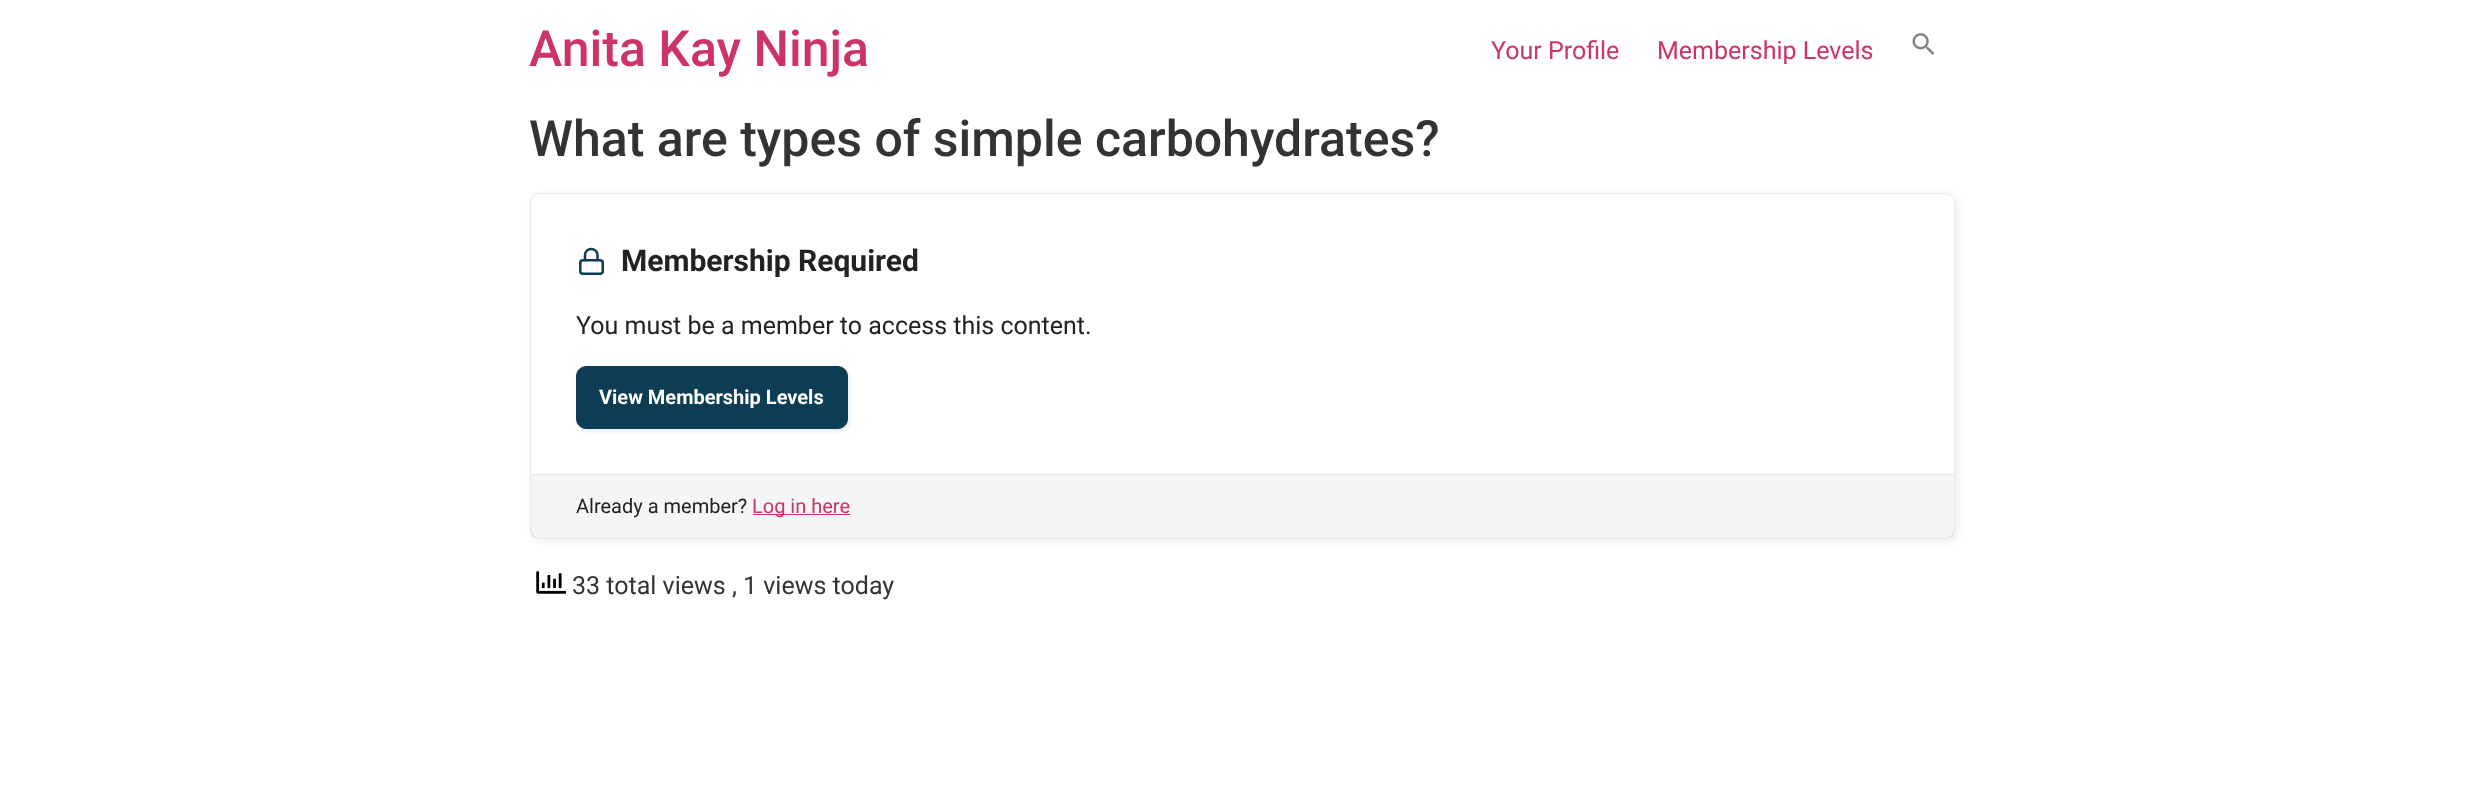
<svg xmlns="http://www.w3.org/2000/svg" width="2483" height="809">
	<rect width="100%" height="100%" fill="#FFFFFF" />
	<text x="529" y="66" font-family="Roboto" font-size="50" font-weight="500" fill="#CC3366">Anita Kay Ninja</text>
	<g font-family="Roboto" font-size="25" fill="#CC3366">
		<text x="1491" y="59">Your Profile</text>
		<text x="1657" y="59">Membership Levels</text>
	</g>
	<image x="1912" y="33" width="23" height="22" href="assets/img1.png" />
	<text x="529" y="156" font-family="Roboto" font-size="50" font-weight="500" fill="#333333">What are types of simple carbohydrates?</text>
	<rect x="533" y="195" width="1425" height="346" rx="10" fill="#000000" fill-opacity="0.07" filter="blur(4.5px)" />
	<rect x="530.5" y="193.5" width="1424" height="345" rx="9.5" fill="#FFFFFF" stroke="#E8E8E8" />
	<rect x="580.25" y="260.25" width="22.5" height="13.5" rx="2.75" fill="none" stroke="#0C3D54" stroke-width="2.5" />
	<path d="M585 260V255C585 251.5 588 249 591 249C594.5 249 597.5 251.5 597.5 255V260" fill="none" stroke="#0C3D54" stroke-width="2.5" stroke-linecap="round" stroke-linejoin="round" />
	<text x="621" y="271" font-family="Roboto" font-size="30" font-weight="700" fill="#222222">Membership Required</text>
	<text x="576" y="334" font-family="Roboto" font-size="25" fill="#222222">You must be a member to access this content.</text>
	<rect x="578" y="369" width="271" height="62" rx="10" fill="#000000" fill-opacity="0.1" filter="blur(2.5px)" />
	<rect x="576.5" y="366.5" width="271" height="62" rx="9.5" fill="#0C3D54" stroke="#0C3D54" />
	<text x="599" y="404" font-family="Roboto" font-size="20" font-weight="700" fill="#FFFFFF">View Membership Levels</text>
	<rect x="531" y="475" width="1423" height="63" fill="#000000" fill-opacity="0.04" />
	<rect x="531" y="474" width="1423" height="1" fill="#E8E8E8" />
	<text x="576" y="513" font-family="Roboto" font-size="20" fill="#222222">Already a member?</text>
	<rect x="753" y="514" width="97" height="1" fill="#CC3366" />
	<text x="752" y="513" font-family="Roboto" font-size="20" fill="#CC3366">Log in here</text>
	<image x="536" y="571" width="30" height="23" href="assets/img2.png" />
	<text x="572" y="594" font-family="Roboto" font-size="25" fill="#333333">33 total views , 1 views today</text>
</svg>
